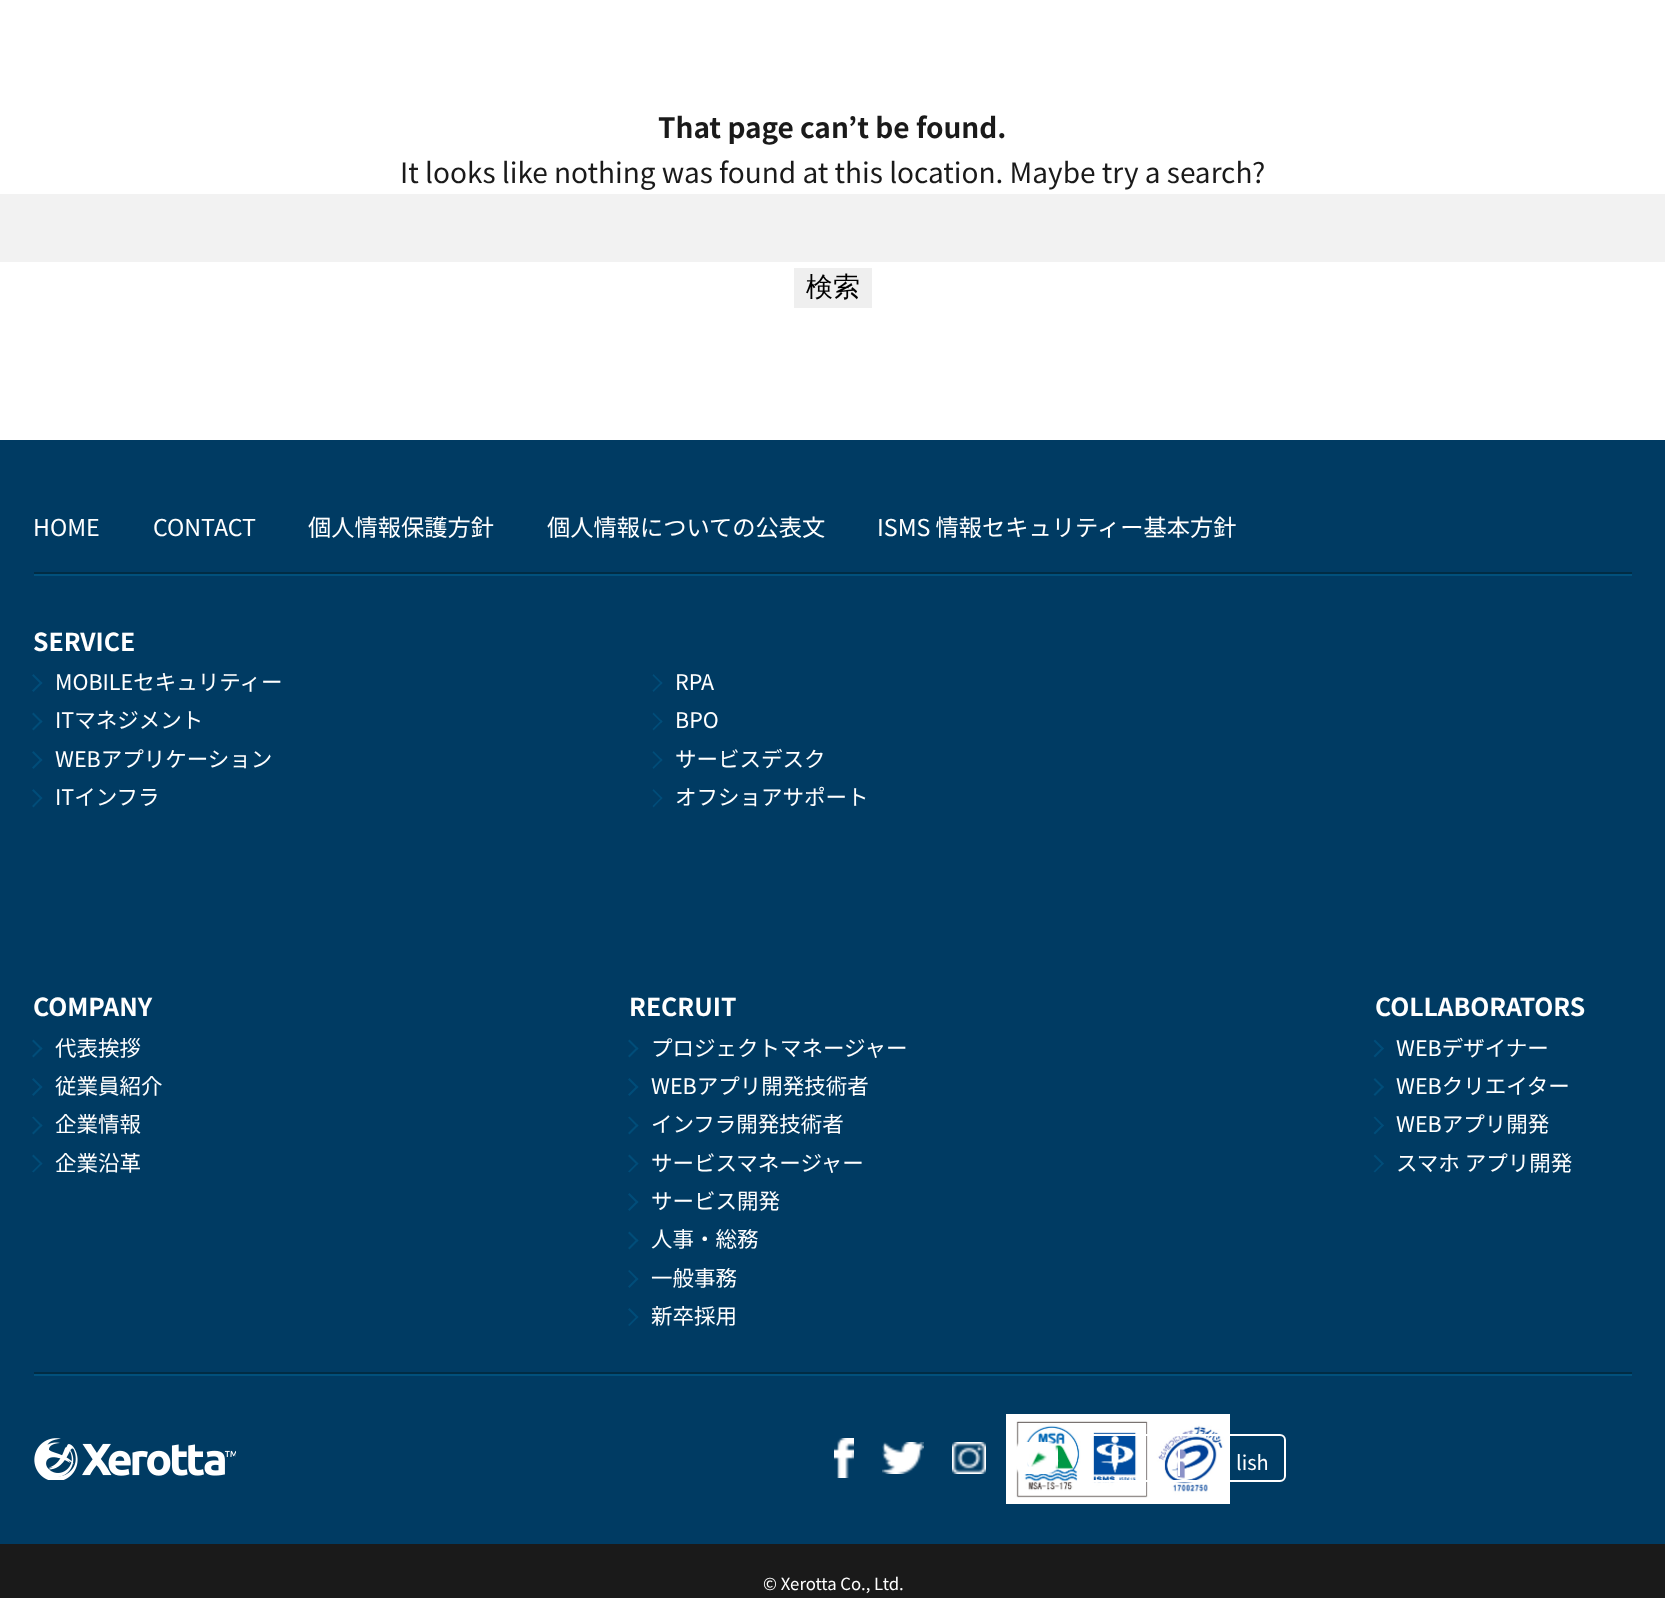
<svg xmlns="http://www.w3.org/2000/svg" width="1665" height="1598">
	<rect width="100%" height="100%" fill="#FFFFFF" />
	<text x="658" y="138" font-family="Noto Sans JP" font-size="28" font-weight="700" fill="#1A1A1A">That page can’t be found.</text>
	<text x="400" y="183" font-family="Noto Sans JP" font-size="28" fill="#1A1A1A">It looks like nothing was found at this location. Maybe try a search?</text>
	<rect x="0" y="194" width="1665" height="68" fill="#F2F2F2" />
	<rect x="794" y="268" width="78" height="40" fill="#EFEFEF" />
	<text x="806" y="296" font-family="WenQuanYi Zen Hei" font-size="27" font-weight="500" fill="#000000">検索</text>
	<rect x="0" y="440" width="1665" height="1104" fill="#003B63" />
	<g font-family="Noto Sans JP" font-size="23.25" fill="#FFFFFF">
		<text x="33" y="536">HOME</text>
		<text x="153" y="536">CONTACT</text>
		<text x="308" y="536">個人情報保護方針</text>
		<text x="547" y="536">個人情報についての公表文</text>
		<text x="877" y="536">ISMS 情報セキュリティー基本方針</text>
	</g>
	<rect x="34" y="572" width="1598" height="2" fill="#012C44" />
	<rect x="34" y="1372" width="1598" height="2" fill="#012C44" />
	<rect x="34" y="574" width="1598" height="2" fill="#01507C" />
	<text x="33" y="651" font-family="Noto Sans JP" font-size="24.75" font-weight="700" fill="#FFFFFF">SERVICE</text>
	<path d="M33.5 674L42.5 683L41 684.5L32 675.5Z" fill="#014D79" />
	<path d="M41 681.5L42.5 683L33.5 692L32 690.5Z" fill="#014D79" />
	<text x="55" y="690" font-family="Noto Sans JP" font-size="21.5" fill="#FFFFFF">MOBILEセキュリティー</text>
	<path d="M33.5 712.5L42.5 721.5L41 723L32 714Z" fill="#014D79" />
	<path d="M41 720L42.5 721.5L33.5 730.5L32 729Z" fill="#014D79" />
	<text x="55" y="728" font-family="Noto Sans JP" font-size="21.5" fill="#FFFFFF">ITマネジメント</text>
	<path d="M33.5 751L42.5 760L41 761.5L32 752.5Z" fill="#014D79" />
	<path d="M41 758.5L42.5 760L33.5 769L32 767.5Z" fill="#014D79" />
	<text x="55" y="767" font-family="Noto Sans JP" font-size="21.5" fill="#FFFFFF">WEBアプリケーション</text>
	<path d="M33.5 789L42.5 798L41 799.5L32 790.5Z" fill="#014D79" />
	<path d="M41 797L42.5 798L33.5 807.5L32 806Z" fill="#014D79" />
	<text x="55" y="805" font-family="Noto Sans JP" font-size="21.5" fill="#FFFFFF">ITインフラ</text>
	<path d="M653.5 674L662.5 683L661.5 684.5L652.5 675.5Z" fill="#014D79" />
	<path d="M661.5 681.5L662.5 683L653.5 692L652.5 690.5Z" fill="#014D79" />
	<text x="675" y="690" font-family="Noto Sans JP" font-size="21.5" fill="#FFFFFF">RPA</text>
	<path d="M653.5 712.5L662.5 721.5L661.5 723L652.5 714Z" fill="#014D79" />
	<path d="M661.5 720L662.5 721.5L653.5 730.5L652.5 729Z" fill="#014D79" />
	<text x="675" y="728" font-family="Noto Sans JP" font-size="21.5" fill="#FFFFFF">BPO</text>
	<path d="M653.5 751L662.5 760L661.5 761.5L652.5 752.5Z" fill="#014D79" />
	<path d="M661.5 758.5L662.5 760L653.5 769L652.5 767.5Z" fill="#014D79" />
	<text x="675" y="767" font-family="Noto Sans JP" font-size="21.5" fill="#FFFFFF">サービスデスク</text>
	<path d="M653.5 789L662.5 798L661.5 799.5L652.5 790.5Z" fill="#014D79" />
	<path d="M661.5 797L662.5 798L653.5 807.5L652.5 806Z" fill="#014D79" />
	<text x="675" y="805" font-family="Noto Sans JP" font-size="21.5" fill="#FFFFFF">オフショアサポート</text>
	<text x="33" y="1016" font-family="Noto Sans JP" font-size="24.75" font-weight="700" fill="#FFFFFF">COMPANY</text>
	<path d="M33.5 1039.5L42.5 1048.5L41 1050L32 1041Z" fill="#014D79" />
	<path d="M41 1047L42.5 1048.5L33.5 1057.5L32 1056Z" fill="#014D79" />
	<text x="55" y="1056" font-family="Noto Sans JP" font-size="21.5" fill="#FFFFFF">代表挨拶</text>
	<path d="M33.5 1078L42.5 1087L41 1088.5L32 1079.5Z" fill="#014D79" />
	<path d="M41 1085.5L42.5 1087L33.5 1096L32 1094.5Z" fill="#014D79" />
	<text x="55" y="1094" font-family="Noto Sans JP" font-size="21.5" fill="#FFFFFF">従業員紹介</text>
	<path d="M33.5 1116.5L42.5 1125.5L41 1127L32 1117.5Z" fill="#014D79" />
	<path d="M41 1124L42.5 1125.5L33.5 1134.5L32 1133Z" fill="#014D79" />
	<text x="55" y="1132" font-family="Noto Sans JP" font-size="21.5" fill="#FFFFFF">企業情報</text>
	<path d="M33.5 1154.5L42.5 1163.5L41 1165L32 1156Z" fill="#014D79" />
	<path d="M41 1162.5L42.5 1163.5L33.5 1172.5L32 1171.5Z" fill="#014D79" />
	<text x="55" y="1171" font-family="Noto Sans JP" font-size="21.5" fill="#FFFFFF">企業沿革</text>
	<text x="629" y="1016" font-family="Noto Sans JP" font-size="24.75" font-weight="700" fill="#FFFFFF">RECRUIT</text>
	<path d="M629.5 1039.5L638.5 1048.5L637 1050L628 1041Z" fill="#014D79" />
	<path d="M637 1047L638.5 1048.5L629.5 1057.5L628 1056Z" fill="#014D79" />
	<text x="651" y="1056" font-family="Noto Sans JP" font-size="21.5" fill="#FFFFFF">プロジェクトマネージャー</text>
	<path d="M629.5 1078L638.5 1087L637 1088.5L628 1079.5Z" fill="#014D79" />
	<path d="M637 1085.5L638.5 1087L629.5 1096L628 1094.5Z" fill="#014D79" />
	<text x="651" y="1094" font-family="Noto Sans JP" font-size="21.5" fill="#FFFFFF">WEBアプリ開発技術者</text>
	<path d="M629.5 1116.5L638.5 1125.5L637 1127L628 1117.5Z" fill="#014D79" />
	<path d="M637 1124L638.5 1125.5L629.5 1134.5L628 1133Z" fill="#014D79" />
	<text x="651" y="1132" font-family="Noto Sans JP" font-size="21.5" fill="#FFFFFF">インフラ開発技術者</text>
	<path d="M629.5 1154.5L638.5 1163.5L637 1165L628 1156Z" fill="#014D79" />
	<path d="M637 1162.5L638.5 1163.5L629.5 1172.5L628 1171.5Z" fill="#014D79" />
	<text x="651" y="1171" font-family="Noto Sans JP" font-size="21.5" fill="#FFFFFF">サービスマネージャー</text>
	<path d="M629.5 1193L638.5 1202L637 1203.5L628 1194.5Z" fill="#014D79" />
	<path d="M637 1200.5L638.5 1202L629.5 1211L628 1209.5Z" fill="#014D79" />
	<text x="651" y="1209" font-family="Noto Sans JP" font-size="21.5" fill="#FFFFFF">サービス開発</text>
	<path d="M629.5 1231.5L638.5 1240.5L637 1242L628 1233Z" fill="#014D79" />
	<path d="M637 1239L638.5 1240.5L629.5 1249.5L628 1248Z" fill="#014D79" />
	<text x="651" y="1247" font-family="Noto Sans JP" font-size="21.5" fill="#FFFFFF">人事・総務</text>
	<path d="M629.5 1270L638.5 1279L637 1280.5L628 1271Z" fill="#014D79" />
	<path d="M637 1277.5L638.5 1279L629.5 1288L628 1286.5Z" fill="#014D79" />
	<text x="651" y="1286" font-family="Noto Sans JP" font-size="21.5" fill="#FFFFFF">一般事務</text>
	<path d="M629.5 1308L638.5 1317L637 1318.5L628 1309.5Z" fill="#014D79" />
	<path d="M637 1316L638.5 1317L629.5 1326L628 1325Z" fill="#014D79" />
	<text x="651" y="1324" font-family="Noto Sans JP" font-size="21.5" fill="#FFFFFF">新卒採用</text>
	<text x="1375" y="1016" font-family="Noto Sans JP" font-size="24.75" font-weight="700" fill="#FFFFFF">COLLABORATORS</text>
	<path d="M1375 1039.5L1384 1048.5L1382.5 1050L1373.5 1041Z" fill="#014D79" />
	<path d="M1382.5 1047L1384 1048.5L1375 1057.5L1373.5 1056Z" fill="#014D79" />
	<text x="1396" y="1056" font-family="Noto Sans JP" font-size="21.5" fill="#FFFFFF">WEBデザイナー</text>
	<path d="M1375 1078L1384 1087L1382.5 1088.5L1373.5 1079.5Z" fill="#014D79" />
	<path d="M1382.5 1085.5L1384 1087L1375 1096L1373.5 1094.5Z" fill="#014D79" />
	<text x="1396" y="1094" font-family="Noto Sans JP" font-size="21.5" fill="#FFFFFF">WEBクリエイター</text>
	<path d="M1375 1116.5L1384 1125.5L1382.5 1127L1373.5 1117.5Z" fill="#014D79" />
	<path d="M1382.5 1124L1384 1125.5L1375 1134.5L1373.5 1133Z" fill="#014D79" />
	<text x="1396" y="1132" font-family="Noto Sans JP" font-size="21.5" fill="#FFFFFF">WEBアプリ開発</text>
	<path d="M1375 1154.5L1384 1163.5L1382.5 1165L1373.5 1156Z" fill="#014D79" />
	<path d="M1382.5 1162.5L1384 1163.5L1375 1172.5L1373.5 1171.5Z" fill="#014D79" />
	<text x="1396" y="1171" font-family="Noto Sans JP" font-size="21.5" fill="#FFFFFF">スマホ アプリ開発</text>
	<rect x="34" y="1374" width="1598" height="2" fill="#01507C" />
	<image x="34" y="1438" width="202" height="42" href="assets/img1.png" />
	<image x="1006" y="1414" width="224" height="90" href="assets/img2.png" />
	<image x="834" y="1438" width="20" height="40" href="assets/img3.png" />
	<image x="882" y="1442" width="42" height="32" href="assets/img4.png" />
	<image x="952" y="1442" width="34" height="32" href="assets/img5.png" />
	<image x="1016" y="1442" width="42" height="32" href="assets/img6.png" />
	<rect x="1087" y="1435" width="198" height="46" rx="5" fill="none" stroke="#FFFFFF" stroke-width="2" />
	<rect x="1178" y="1448" width="2" height="28" fill="#FFFFFF" />
	<text x="1236" y="1470" font-family="Noto Sans JP" font-size="20" fill="#FFFFFF">lish</text>
	<rect x="0" y="1544" width="1665" height="54" fill="#1A1A1A" />
	<text x="763" y="1590" font-family="Noto Sans JP" font-size="16.75" fill="#FFFFFF">©︎ Xerotta Co., Ltd.</text>
</svg>
